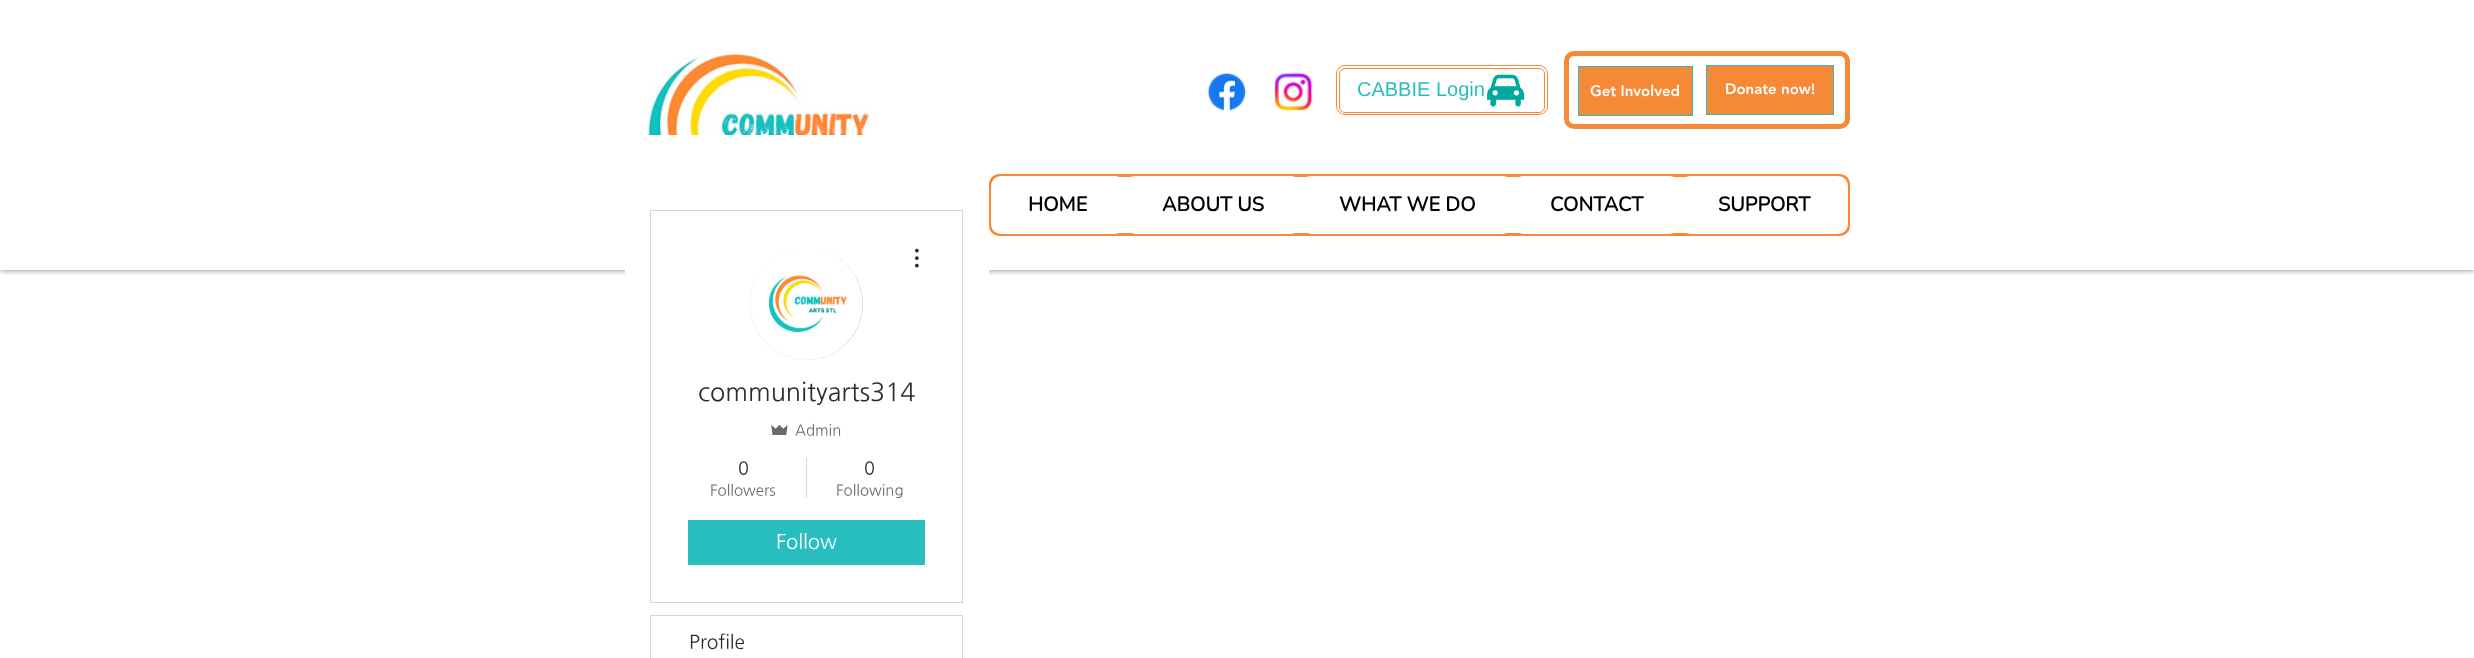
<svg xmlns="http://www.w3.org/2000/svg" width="2474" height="658">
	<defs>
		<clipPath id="clip1"><rect x="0" y="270" width="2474" height="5" /></clipPath>
	</defs>
	<rect width="100%" height="100%" fill="#FFFFFF" />
	<g clip-path="url(#clip1)">
		<rect x="0" y="0" width="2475" height="270" fill="#000000" fill-opacity="0.5" filter="blur(3px)" />
	</g>
	<image x="648" y="53" width="221" height="82" href="assets/img1.png" />
	<image x="1207" y="72" width="40" height="39" href="assets/img2.png" />
	<image x="1274" y="72" width="39" height="40" href="assets/img3.png" />
	<rect x="1336.5" y="65.5" width="211" height="49" rx="8.5" fill="none" stroke="#F68935" />
	<rect x="1339.5" y="68.5" width="205" height="44" rx="5.5" fill="none" stroke="#F68935" />
	<text x="1357" y="96" font-family="Liberation Sans" font-size="20" fill="#28BDBF">CABBIE Login</text>
	<image x="1487" y="74" width="38" height="33" href="assets/img4.png" />
	<rect x="1578.5" y="66.5" width="114" height="49" fill="#F68935" stroke="#28BDBF" />
	<rect x="1706.5" y="65.5" width="127" height="49" fill="#F68935" stroke="#28BDBF" />
	<rect x="1566.5" y="53.5" width="281" height="73" rx="7.5" fill="none" stroke="#F68935" stroke-width="5" />
	<g font-family="'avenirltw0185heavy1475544'" font-size="15" font-weight="900" fill="#FFFFFF">
		<text x="1590" y="96">Get Involved</text>
		<text x="1725" y="94">Donate now!</text>
	</g>
	<rect x="990.5" y="175.5" width="858" height="59" rx="8.5" fill="none" stroke="#F68935" stroke-width="3" />
	<rect x="992.5" y="177.5" width="131" height="55" rx="8.5" fill="none" stroke="#FFFFFF" stroke-width="3" />
	<text x="1028" y="211" font-family="Nunito" font-size="20" font-weight="700" fill="#000000">HOME</text>
	<rect x="1126.5" y="177.5" width="173" height="55" rx="8.5" fill="none" stroke="#FFFFFF" stroke-width="3" />
	<text x="1162" y="211" font-family="Nunito" font-size="20" font-weight="700" fill="#000000">ABOUT US</text>
	<rect x="1302.5" y="177.5" width="209" height="55" rx="8.5" fill="none" stroke="#FFFFFF" stroke-width="3" />
	<text x="1339" y="211" font-family="Nunito" font-size="20" font-weight="700" fill="#000000">WHAT WE DO</text>
	<rect x="1514.5" y="177.5" width="164" height="55" rx="8.5" fill="none" stroke="#FFFFFF" stroke-width="3" />
	<text x="1550" y="211" font-family="Nunito" font-size="20" font-weight="700" fill="#000000">CONTACT</text>
	<rect x="1681.5" y="177.5" width="165" height="55" rx="8.5" fill="none" stroke="#FFFFFF" stroke-width="3" />
	<text x="1718" y="211" font-family="Nunito" font-size="20" font-weight="700" fill="#000000">SUPPORT</text>
	<rect x="625" y="270" width="364" height="6" fill="#FFFFFF" />
	<rect x="650.5" y="210.5" width="312" height="392" fill="none" stroke="#D4D4D4" />
	<rect x="750" y="248" width="113" height="112" rx="56" fill="#D8D8D8" />
	<image x="750" y="248" width="113" height="112" href="assets/img5.png" />
	<image x="915" y="248" width="4" height="20" href="assets/img6.png" />
	<text x="698" y="400" font-family="NanumGothic" font-size="25" fill="#2A2A2A">communityarts314</text>
	<image x="771" y="425" width="17" height="10" href="assets/img7.png" />
	<text x="795" y="435" font-family="NanumGothic" font-size="15" fill="#6A6A6A">Admin</text>
	<text x="738" y="474" font-family="NanumGothic" font-size="18" fill="#2A2A2A">0</text>
	<text x="710" y="495" font-family="NanumGothic" font-size="15" fill="#6A6A6A">Followers</text>
	<rect x="806" y="458" width="1" height="40" fill="#D4D4D4" />
	<text x="864" y="474" font-family="NanumGothic" font-size="18" fill="#2A2A2A">0</text>
	<text x="836" y="495" font-family="NanumGothic" font-size="15" fill="#6A6A6A">Following</text>
	<rect x="688" y="520" width="237" height="45" fill="#28BDBF" />
	<text x="776" y="548" font-family="NanumGothic" font-size="20" fill="#FFFFFF">Follow</text>
	<rect x="650.5" y="615.5" width="312" height="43" fill="none" stroke="#D4D4D4" />
	<text x="689" y="648" font-family="NanumGothic" font-size="19" fill="#2A2A2A">Profile</text>
</svg>
